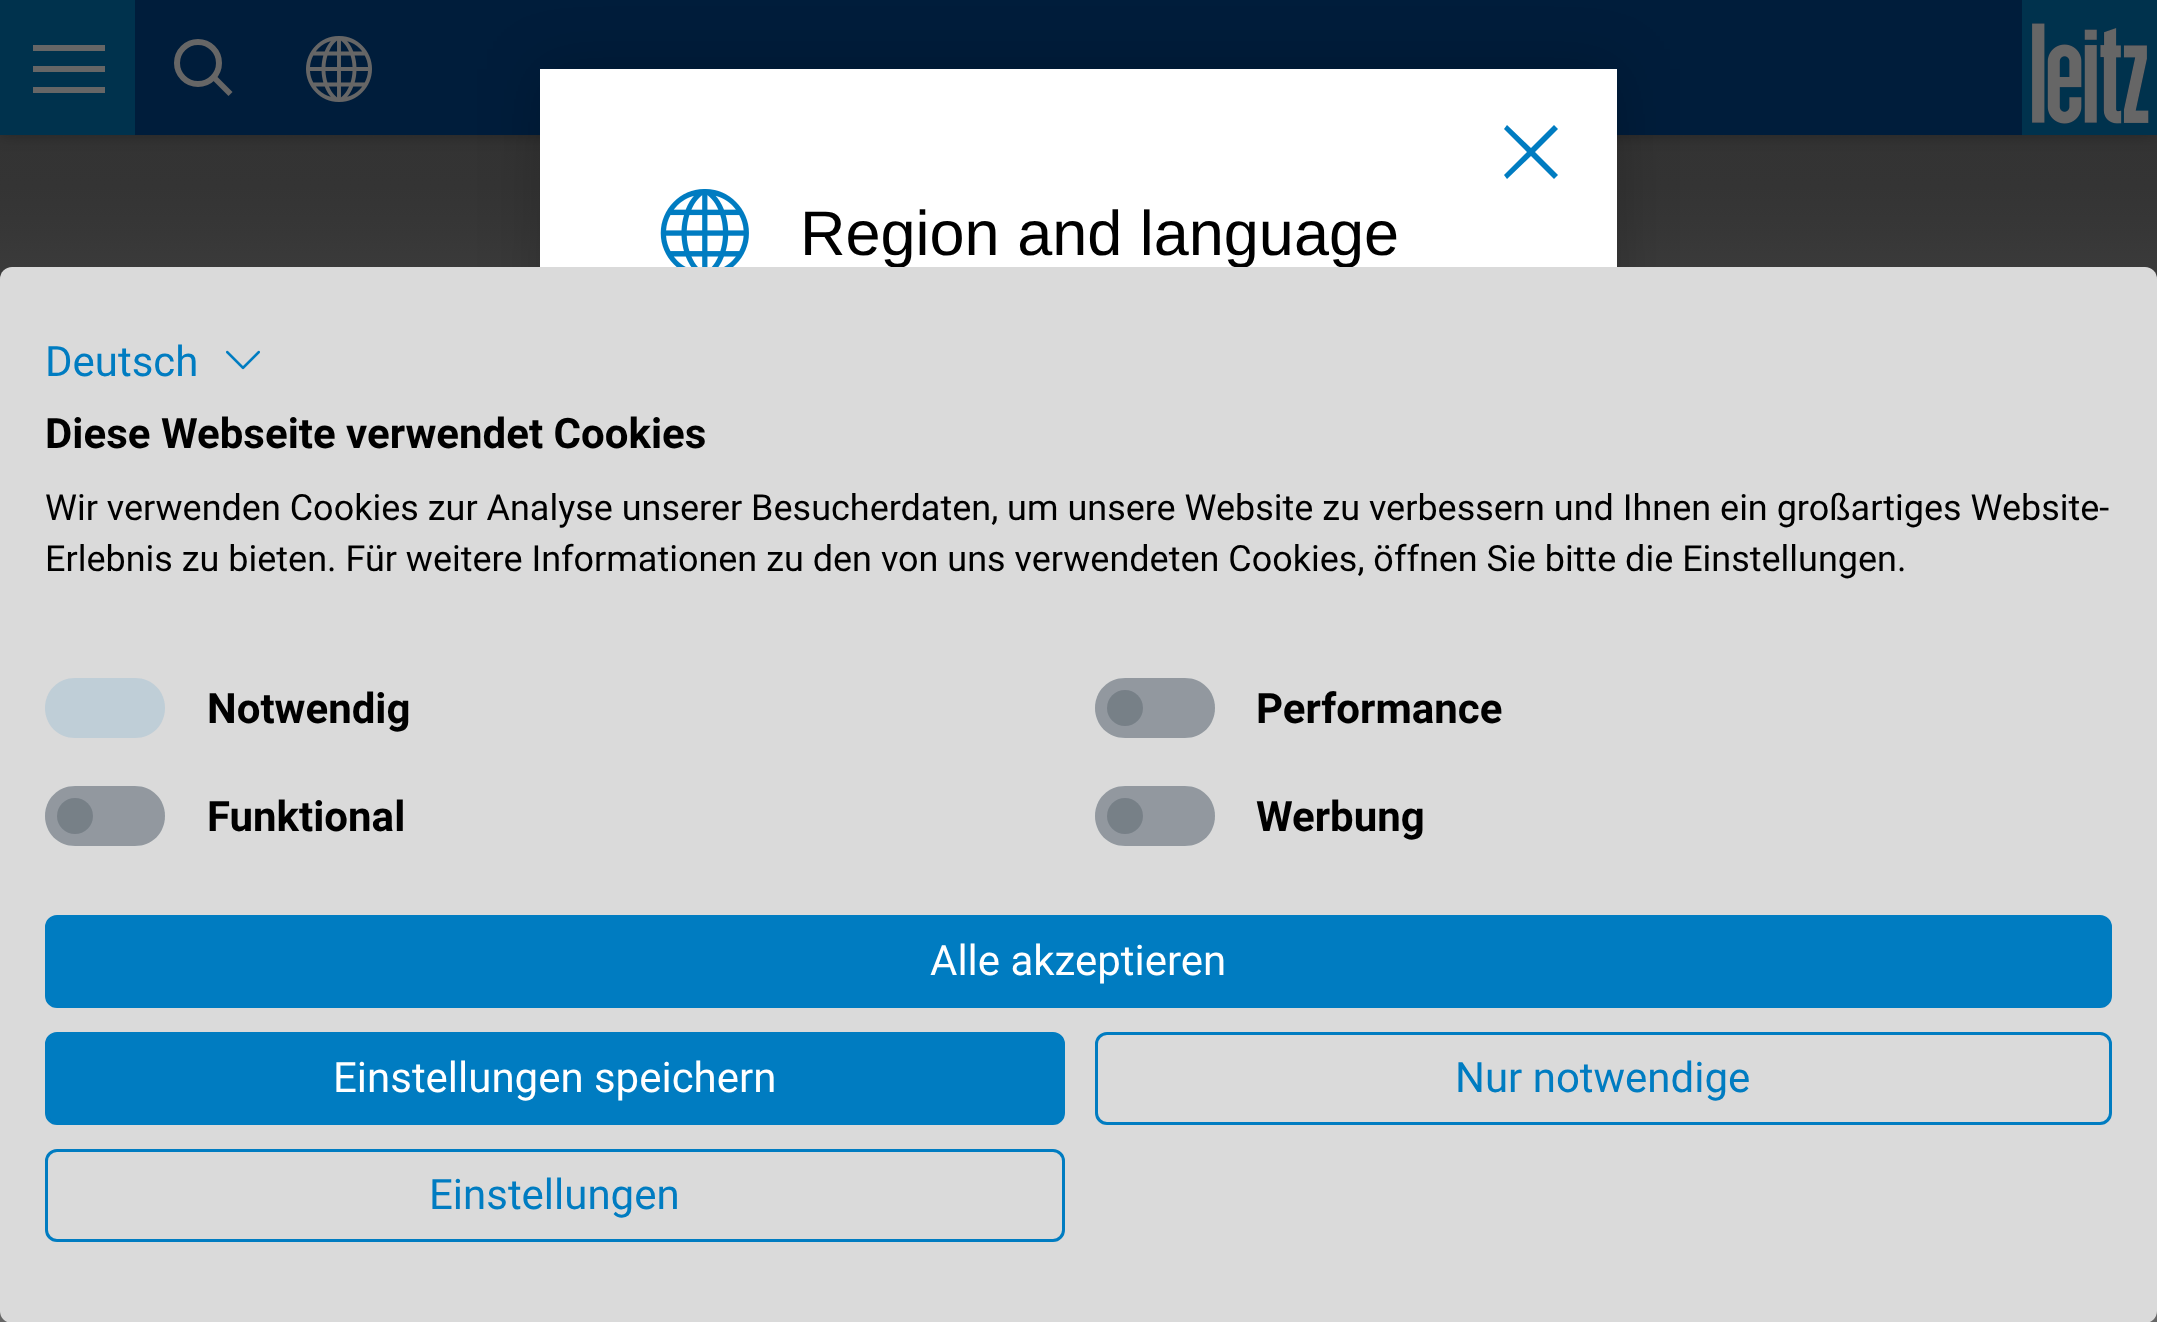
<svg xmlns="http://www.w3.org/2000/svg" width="2157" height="1322">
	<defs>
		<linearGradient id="g1" gradientUnits="userSpaceOnUse" x1="1079" y1="654" x2="1079" y2="135"><stop offset="0" stop-color="#666666" /><stop offset="0.1" stop-color="#656565" /><stop offset="0.19" stop-color="#636363" /><stop offset="0.27" stop-color="#5E5E5E" /><stop offset="0.35" stop-color="#595959" /><stop offset="0.43" stop-color="#535353" /><stop offset="0.5" stop-color="#4D4D4D" /><stop offset="0.57" stop-color="#464646" /><stop offset="0.65" stop-color="#404040" /><stop offset="0.73" stop-color="#3B3B3B" /><stop offset="0.81" stop-color="#373737" /><stop offset="0.9" stop-color="#343434" /><stop offset="1" stop-color="#333333" /></linearGradient>
	</defs>
	<rect width="100%" height="100%" fill="#666666" />
	<rect x="0" y="135" width="2157" height="144" fill="url(#g1)" />
	<rect x="0" y="0" width="2157" height="135" fill="#000000" fill-opacity="0.27" filter="blur(7.5px)" />
	<rect x="135" y="0" width="2014" height="135" fill="#001D3B" />
	<rect x="0" y="0" width="135" height="135" fill="#00324D" />
	<rect x="33" y="45" width="72" height="6" fill="#666666" />
	<rect x="33" y="66" width="72" height="6" fill="#666666" />
	<rect x="33" y="87" width="72" height="6" fill="#666666" />
	<circle cx="198" cy="63" r="21" fill="none" stroke="#666666" stroke-width="6" />
	<path d="M215.5 75L232.5 92L228.5 96L211.5 79Z" fill="#666666" />
	<image x="306" y="36" width="66" height="66" href="assets/img1.png" />
	<image x="2022" y="0" width="135" height="135" href="assets/img2.png" />
	<rect x="540" y="69" width="1077" height="1188" fill="#000000" fill-opacity="0.2" filter="blur(30px)" />
	<rect x="540" y="69" width="1077" height="198" fill="#FFFFFF" />
	<path d="M1558 129L1554 125L1531 148L1507 125L1504 129L1527 152L1504 175L1507 179L1531 156L1554 179L1558 175L1535 152Z" fill="#007CC1" />
	<image x="660" y="189" width="89" height="78" href="assets/img3.png" />
	<text x="800" y="255" font-family="Liberation Sans" font-size="63" fill="#000000">Region and language</text>
	<rect x="0" y="267" width="2157" height="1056" rx="12" fill="#DADADA" />
	<text x="45" y="376" font-family="Roboto" font-size="42" fill="#007CC1">Deutsch</text>
	<image x="226" y="350" width="34" height="20" href="assets/img4.png" />
	<text x="45" y="448" font-family="Roboto" font-size="42" font-weight="700" fill="#000000">Diese Webseite verwendet Cookies</text>
	<g font-family="Roboto" font-size="36" fill="#000000">
		<text x="45" y="520">Wir verwenden Cookies zur Analyse unserer Besucherdaten, um unsere Website zu verbessern und Ihnen ein großartiges Website-</text>
		<text x="45" y="571">Erlebnis zu bieten. Für weitere Informationen zu den von uns verwendeten Cookies, öffnen Sie bitte die Einstellungen.</text>
	</g>
	<path d="M75 678H135C152 678 165 691 165 708C165 725 152 738 135 738H75C58 738 45 725 45 708C45 691 58 678 75 678Z" fill="#BFCED7" />
	<text x="207" y="723" font-family="Roboto" font-size="42" font-weight="700" fill="#000000">Notwendig</text>
	<rect x="1095" y="678" width="120" height="60" rx="30" fill="#E9ECEF" />
	<circle cx="1125" cy="708" r="18" fill="#92999F" />
	<path d="M1125 678H1185C1202 678 1215 691 1215 708C1215 725 1202 738 1185 738H1125C1108 738 1095 725 1095 708C1095 691 1108 678 1125 678Z" fill="#6C757D" fill-opacity="0.7" />
	<text x="1256" y="723" font-family="Roboto" font-size="42" font-weight="700" fill="#000000">Performance</text>
	<rect x="45" y="786" width="120" height="60" rx="30" fill="#E9ECEF" />
	<circle cx="75" cy="816" r="18" fill="#92999F" />
	<path d="M75 786H135C152 786 165 799 165 816C165 833 152 846 135 846H75C58 846 45 833 45 816C45 799 58 786 75 786Z" fill="#6C757D" fill-opacity="0.7" />
	<text x="207" y="831" font-family="Roboto" font-size="42" font-weight="700" fill="#000000">Funktional</text>
	<rect x="1095" y="786" width="120" height="60" rx="30" fill="#E9ECEF" />
	<circle cx="1125" cy="816" r="18" fill="#92999F" />
	<path d="M1125 786H1185C1202 786 1215 799 1215 816C1215 833 1202 846 1185 846H1125C1108 846 1095 833 1095 816C1095 799 1108 786 1125 786Z" fill="#6C757D" fill-opacity="0.7" />
	<text x="1256" y="831" font-family="Roboto" font-size="42" font-weight="700" fill="#000000">Werbung</text>
	<rect x="46.5" y="916.5" width="2064" height="90" rx="10.5" fill="#007CC1" stroke="#007CC1" stroke-width="3" />
	<text x="930" y="975" font-family="Roboto" font-size="42" fill="#FFFFFF">Alle akzeptieren</text>
	<rect x="46.5" y="1033.5" width="1017" height="90" rx="10.5" fill="#007CC1" stroke="#007CC1" stroke-width="3" />
	<text x="333" y="1092" font-family="Roboto" font-size="42" fill="#FFFFFF">Einstellungen speichern</text>
	<rect x="1096.5" y="1033.5" width="1014" height="90" rx="10.5" fill="none" stroke="#007CC1" stroke-width="3" />
	<text x="1455" y="1092" font-family="Roboto" font-size="42" fill="#007CC1">Nur notwendige</text>
	<rect x="46.5" y="1150.5" width="1017" height="90" rx="10.5" fill="none" stroke="#007CC1" stroke-width="3" />
	<text x="429" y="1209" font-family="Roboto" font-size="42" fill="#007CC1">Einstellungen</text>
</svg>
